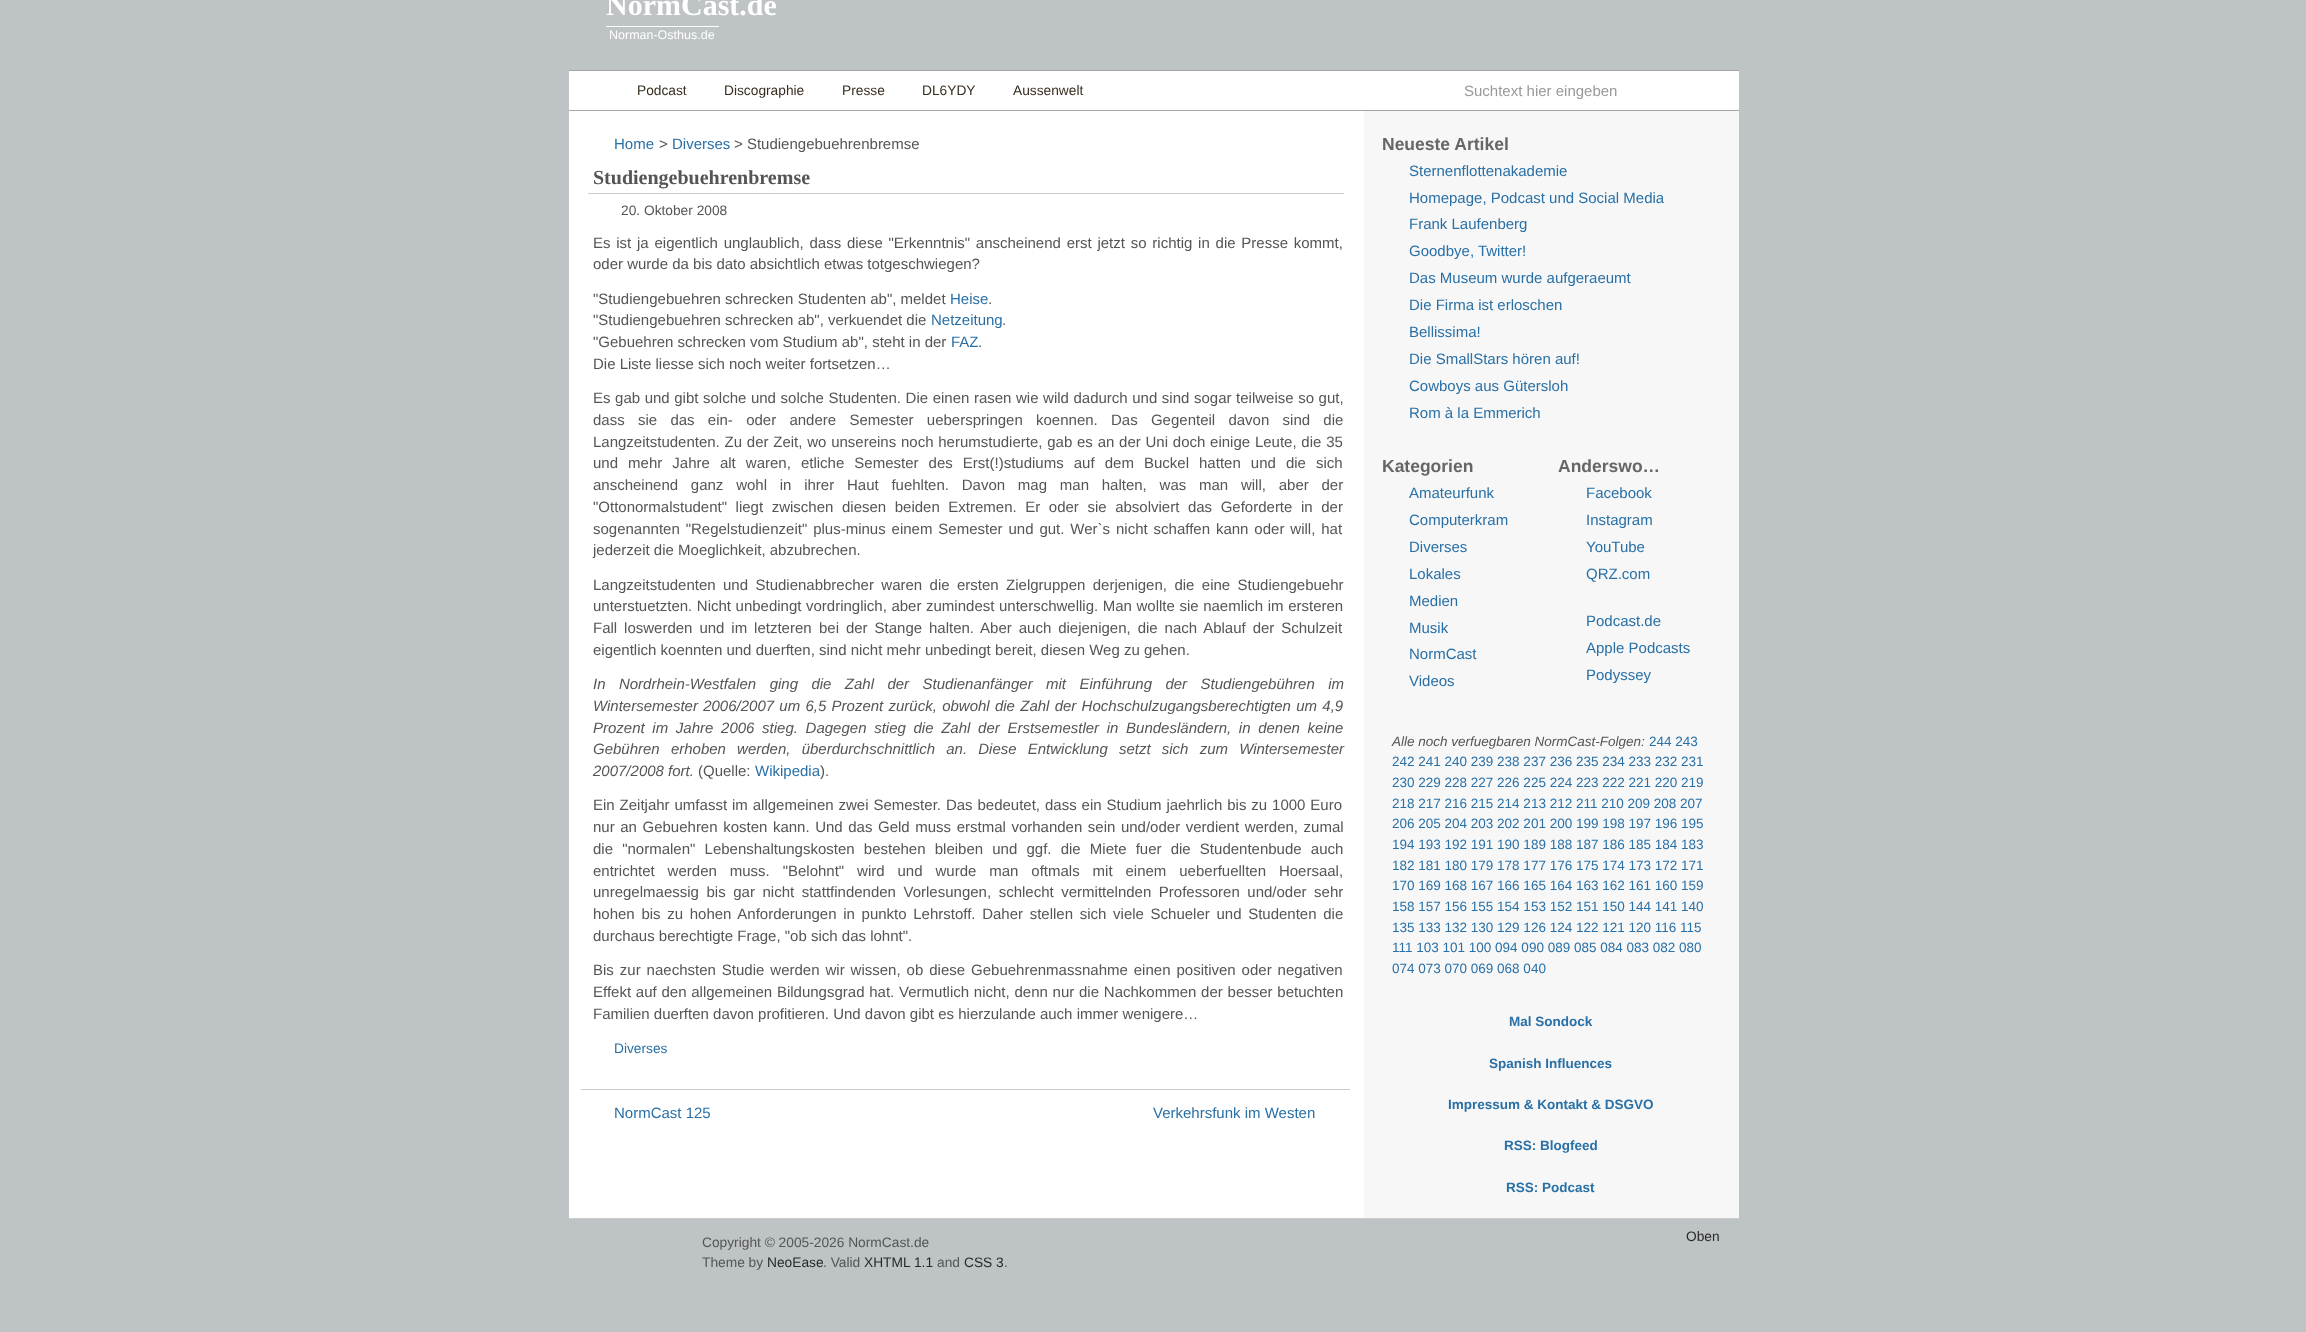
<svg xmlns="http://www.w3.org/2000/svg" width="2306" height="1332">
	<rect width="100%" height="100%" fill="#BEC3C6" />
	<rect x="569" y="70" width="1170" height="1" fill="#A6A6A6" />
	<text x="606" y="15" font-family="Liberation Serif" font-size="30" font-weight="700" fill="#FFFFFF">NormCast.de</text>
	<rect x="606" y="26" width="113" height="1" fill="#FFFFFF" />
	<text x="609" y="39" font-family="Liberation Sans" font-size="12.5" fill="#FFFFFF">Norman-Osthus.de</text>
	<rect x="569" y="71" width="1170" height="39" fill="#FFFFFF" />
	<rect x="569" y="110" width="1170" height="1" fill="#A6A6A6" />
	<g font-family="Liberation Sans" font-size="13.75" fill="#382E1F">
		<text x="637" y="95">Podcast</text>
		<text x="724" y="95">Discographie</text>
		<text x="842" y="95">Presse</text>
		<text x="922" y="95">DL6YDY</text>
		<text x="1013" y="95">Aussenwelt</text>
	</g>
	<text x="1464" y="96" font-family="Liberation Sans" font-size="15" fill="#999999">Suchtext hier eingeben</text>
	<rect x="569" y="111" width="795" height="1107" fill="#FFFFFF" />
	<text x="614" y="149" font-family="Liberation Sans" font-size="15" fill="#2970A6">Home</text>
	<text x="659" y="149" font-family="Liberation Sans" font-size="15" fill="#555555">&gt;</text>
	<text x="672" y="149" font-family="Liberation Sans" font-size="15" fill="#2970A6">Diverses</text>
	<text x="734" y="149" font-family="Liberation Sans" font-size="15" fill="#555555">&gt; Studiengebuehrenbremse</text>
	<rect x="588" y="193" width="756" height="1" fill="#CCCCCC" />
	<text x="593" y="184" font-family="Liberation Serif" font-size="20" font-weight="700" fill="#555555">Studiengebuehrenbremse</text>
	<text x="621" y="215" font-family="Liberation Sans" font-size="13.75" fill="#555555">20. Oktober 2008</text>
	<g font-family="Liberation Sans" font-size="15" fill="#555555">
		<text x="593" y="248" word-spacing="1.6">Es ist ja eigentlich unglaublich, dass diese "Erkenntnis" anscheinend erst jetzt so richtig in die Presse kommt,</text>
		<text x="593" y="269">oder wurde da bis dato absichtlich etwas totgeschwiegen?</text>
		<text x="593" y="304">"Studiengebuehren schrecken Studenten ab", meldet</text>
	</g>
	<text x="950" y="304" font-family="Liberation Sans" font-size="15" fill="#2970A6">Heise</text>
	<g font-family="Liberation Sans" font-size="15" fill="#555555">
		<text x="988" y="304">.</text>
		<text x="593" y="325">"Studiengebuehren schrecken ab", verkuendet die</text>
	</g>
	<text x="931" y="325" font-family="Liberation Sans" font-size="15" fill="#2970A6">Netzeitung</text>
	<g font-family="Liberation Sans" font-size="15" fill="#555555">
		<text x="1002" y="325">.</text>
		<text x="593" y="347">"Gebuehren schrecken vom Studium ab", steht in der</text>
	</g>
	<text x="951" y="347" font-family="Liberation Sans" font-size="15" fill="#2970A6">FAZ</text>
	<g font-family="Liberation Sans" font-size="15" fill="#555555">
		<text x="978" y="347">.</text>
		<text x="593" y="369">Die Liste liesse sich noch weiter fortsetzen…</text>
		<text x="593" y="403" word-spacing="0.4">Es gab und gibt solche und solche Studenten. Die einen rasen wie wild dadurch und sind sogar teilweise so gut,</text>
		<text x="593" y="425" word-spacing="9.1">dass sie das ein- oder andere Semester ueberspringen koennen. Das Gegenteil davon sind die</text>
		<text x="593" y="447" word-spacing="0.6">Langzeitstudenten. Zu der Zeit, wo unsereins noch herumstudierte, gab es an der Uni doch einige Leute, die 35</text>
		<text x="593" y="468" word-spacing="5.9">und mehr Jahre alt waren, etliche Semester des Erst(!)studiums auf dem Buckel hatten und die sich</text>
		<text x="593" y="490" word-spacing="8.6">anscheinend ganz wohl in ihrer Haut fuehlten. Davon mag man halten, was man will, aber der</text>
		<text x="593" y="512" word-spacing="4.4">"Ottonormalstudent" liegt zwischen diesen beiden Extremen. Er oder sie absolviert das Geforderte in der</text>
		<text x="593" y="534" word-spacing="1.75">sogenannten "Regelstudienzeit" plus-minus einem Semester und gut. Wer`s nicht schaffen kann oder will, hat</text>
		<text x="593" y="555">jederzeit die Moeglichkeit, abzubrechen.</text>
		<text x="593" y="590" word-spacing="3.25">Langzeitstudenten und Studienabbrecher waren die ersten Zielgruppen derjenigen, die eine Studiengebuehr</text>
		<text x="593" y="611" word-spacing="0.4">unterstuetzten. Nicht unbedingt vordringlich, aber zumindest unterschwellig. Man wollte sie naemlich im ersteren</text>
		<text x="593" y="633" word-spacing="2.75">Fall loswerden und im letzteren</text>
		<text x="819" y="633" word-spacing="2.75">bei der Stange halten. Aber auch diejenigen, die nach Ablauf der Schulzeit</text>
		<text x="593" y="655">eigentlich koennten und duerften, sind nicht mehr unbedingt bereit, diesen Weg zu gehen.</text>
	</g>
	<g font-family="Liberation Sans" font-size="15" font-style="italic" fill="#555555">
		<text x="593" y="689" word-spacing="9.25">In Nordrhein-Westfalen ging die Zahl der Studienanfänger mit Einführung der Studiengebühren im</text>
		<text x="593" y="711" word-spacing="1.1">Wintersemester 2006/2007 um 6,5 Prozent zurück, obwohl die Zahl der Hochschulzugangsberechtigten um 4,9</text>
		<text x="593" y="733" word-spacing="3.5">Prozent im Jahre 2006 stieg. Dagegen stieg die Zahl der Erstsemestler in Bundesländern, in denen keine</text>
		<text x="593" y="754" word-spacing="7">Gebühren erhoben werden, überdurchschnittlich an. Diese Entwicklung setzt sich zum Wintersemester</text>
		<text x="593" y="776">2007/2008 fort.</text>
	</g>
	<text x="698" y="776" font-family="Liberation Sans" font-size="15" fill="#555555">(Quelle:</text>
	<text x="755" y="776" font-family="Liberation Sans" font-size="15" fill="#2970A6">Wikipedia</text>
	<g font-family="Liberation Sans" font-size="15" fill="#555555">
		<text x="820" y="776">).</text>
		<text x="593" y="810" word-spacing="0.75">Ein Zeitjahr umfasst im allgemeinen zwei Semester. Das bedeutet, dass ein Studium jaehrlich bis zu 1000 Euro</text>
		<text x="593" y="832" word-spacing="1.4">nur an Gebuehren kosten kann. Und das Geld muss erstmal vorhanden sein und/oder verdient werden, zumal</text>
		<text x="593" y="854" word-spacing="5">die "normalen" Lebenshaltungskosten bestehen bleiben und ggf. die Miete fuer die Studentenbude auch</text>
		<text x="593" y="876" word-spacing="8.75">entrichtet werden muss. "Belohnt" wird und wurde man oftmals mit einem ueberfuellten Hoersaal,</text>
		<text x="593" y="897" word-spacing="3.4">unregelmaessig bis gar nicht stattfindenden Vorlesungen, schlecht vermittelnden Professoren und/oder sehr</text>
		<text x="593" y="919" word-spacing="2.5">hohen bis zu hohen Anforderungen in punkto Lehrstoff. Daher stellen sich viele Schueler und Studenten die</text>
		<text x="593" y="941">durchaus berechtigte Frage, "ob sich das lohnt".</text>
		<text x="593" y="975" word-spacing="1.8">Bis zur naechsten Studie werden wir wissen, ob diese Gebuehrenmassnahme einen positiven oder negativen</text>
		<text x="593" y="997" word-spacing="0.6">Effekt auf den allgemeinen Bildungsgrad hat. Vermutlich nicht, denn nur die Nachkommen der besser betuchten</text>
		<text x="593" y="1019">Familien duerften davon profitieren. Und davon gibt es hierzulande auch immer wenigere…</text>
	</g>
	<text x="614" y="1053" font-family="Liberation Sans" font-size="13.75" fill="#2970A6">Diverses</text>
	<rect x="581" y="1089" width="769" height="1" fill="#CCCCCC" />
	<g font-family="Liberation Sans" font-size="15" fill="#2970A6">
		<text x="614" y="1118">NormCast 125</text>
		<text x="1153" y="1118">Verkehrsfunk im Westen</text>
	</g>
	<rect x="1364" y="111" width="375" height="1107" fill="#F7F7F7" />
	<text x="1382" y="150" font-family="Liberation Sans" font-size="17.5" font-weight="700" fill="#666666">Neueste Artikel</text>
	<g font-family="Liberation Sans" font-size="15" fill="#2970A6">
		<text x="1409" y="176">Sternenflottenakademie</text>
		<text x="1409" y="203">Homepage, Podcast und Social Media</text>
		<text x="1409" y="229">Frank Laufenberg</text>
		<text x="1409" y="256">Goodbye, Twitter!</text>
		<text x="1409" y="283">Das Museum wurde aufgeraeumt</text>
		<text x="1409" y="310">Die Firma ist erloschen</text>
		<text x="1409" y="337">Bellissima!</text>
		<text x="1409" y="364">Die SmallStars hören auf!</text>
		<text x="1409" y="391">Cowboys aus Gütersloh</text>
		<text x="1409" y="418">Rom à la Emmerich</text>
	</g>
	<text x="1382" y="472" font-family="Liberation Sans" font-size="17.5" font-weight="700" fill="#666666">Kategorien</text>
	<g font-family="Liberation Sans" font-size="15" fill="#2970A6">
		<text x="1409" y="498">Amateurfunk</text>
		<text x="1409" y="525">Computerkram</text>
		<text x="1409" y="552">Diverses</text>
		<text x="1409" y="579">Lokales</text>
		<text x="1409" y="606">Medien</text>
		<text x="1409" y="633">Musik</text>
		<text x="1409" y="659">NormCast</text>
		<text x="1409" y="686">Videos</text>
	</g>
	<text x="1558" y="472" font-family="Liberation Sans" font-size="17.5" font-weight="700" fill="#666666">Anderswo…</text>
	<g font-family="Liberation Sans" font-size="15" fill="#2970A6">
		<text x="1586" y="498">Facebook</text>
		<text x="1586" y="525">Instagram</text>
		<text x="1586" y="552">YouTube</text>
		<text x="1586" y="579">QRZ.com</text>
		<text x="1586" y="626">Podcast.de</text>
		<text x="1586" y="653">Apple Podcasts</text>
		<text x="1586" y="680">Podyssey</text>
	</g>
	<text x="1392" y="746" font-family="Liberation Sans" font-size="13.5" font-style="italic" fill="#555555">Alle noch verfuegbaren NormCast-Folgen:</text>
	<g font-family="Liberation Sans" font-size="13.5" fill="#2970A6">
		<text x="1649" y="746">244 243</text>
		<text x="1392" y="766">242 241 240 239 238 237 236 235 234 233 232 231</text>
		<text x="1392" y="787">230 229 228 227 226 225 224 223 222 221 220 219</text>
		<text x="1392" y="808">218 217 216 215 214 213 212 211 210 209 208 207</text>
		<text x="1392" y="828">206 205 204 203 202 201 200 199 198 197 196 195</text>
		<text x="1392" y="849">194 193 192 191 190 189 188 187 186 185 184 183</text>
		<text x="1392" y="870">182 181 180 179 178 177 176 175 174 173 172 171</text>
		<text x="1392" y="890">170 169 168 167 166 165 164 163 162 161 160 159</text>
		<text x="1392" y="911">158 157 156 155 154 153 152 151 150 144 141 140</text>
		<text x="1392" y="932">135 133 132 130 129 126 124 122 121 120 116 115</text>
		<text x="1392" y="952">111 103 101 100 094 090 089 085 084 083 082 080</text>
		<text x="1392" y="973">074 073 070 069 068 040</text>
	</g>
	<g font-family="Liberation Sans" font-size="13.5" font-weight="700" fill="#2970A6">
		<text x="1509" y="1026">Mal Sondock</text>
		<text x="1489" y="1068">Spanish Influences</text>
		<text x="1448" y="1109">Impressum &amp; Kontakt &amp; DSGVO</text>
		<text x="1504" y="1150">RSS: Blogfeed</text>
		<text x="1506" y="1192">RSS: Podcast</text>
	</g>
	<rect x="569" y="1218" width="1170" height="1" fill="#CCCCCC" />
	<text x="702" y="1247" font-family="Liberation Sans" font-size="13.75" fill="#555555">Copyright © 2005-2026 NormCast.de</text>
	<text x="1686" y="1241" font-family="Liberation Sans" font-size="13.75" fill="#2A2A2A">Oben</text>
	<text x="702" y="1267" font-family="Liberation Sans" font-size="13.75" fill="#555555">Theme by</text>
	<text x="767" y="1267" font-family="Liberation Sans" font-size="13.75" fill="#2A2A2A">NeoEase</text>
	<text x="823" y="1267" font-family="Liberation Sans" font-size="13.75" fill="#555555">. Valid</text>
	<text x="864" y="1267" font-family="Liberation Sans" font-size="13.75" fill="#2A2A2A">XHTML 1.1</text>
	<text x="937" y="1267" font-family="Liberation Sans" font-size="13.75" fill="#555555">and</text>
	<text x="964" y="1267" font-family="Liberation Sans" font-size="13.75" fill="#2A2A2A">CSS 3</text>
	<text x="1004" y="1267" font-family="Liberation Sans" font-size="13.75" fill="#555555">.</text>
</svg>
